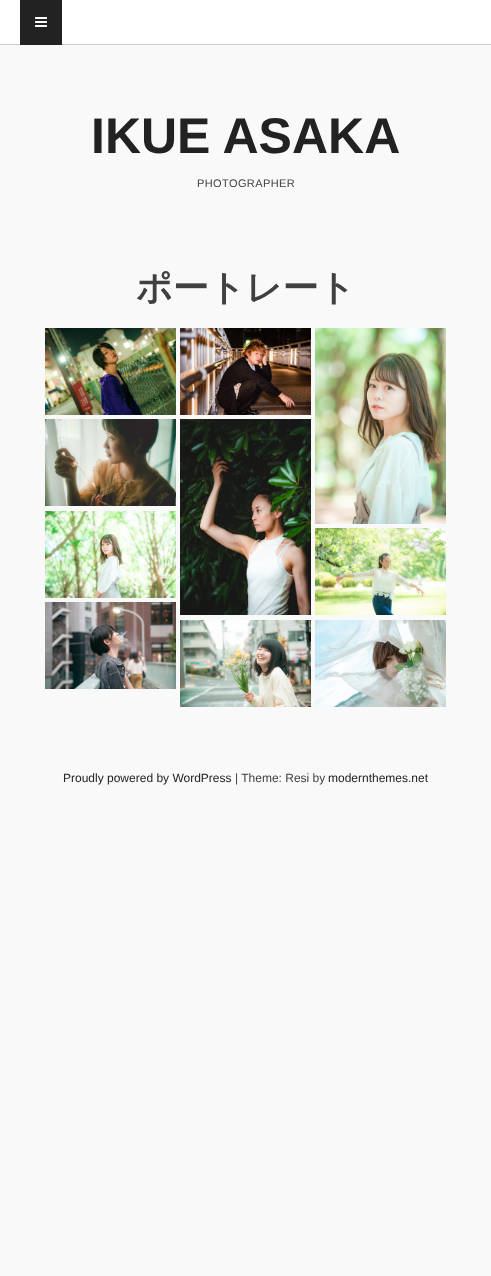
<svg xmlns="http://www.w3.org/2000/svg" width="491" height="1276">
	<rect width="100%" height="100%" fill="#F9F9F9" />
	<rect x="0" y="0" width="491" height="44" fill="#FFFFFF" />
	<rect x="0" y="44" width="491" height="1" fill="#CCCCCC" />
	<rect x="20" y="0" width="42" height="45" fill="#222222" />
	<image x="35" y="17" width="12" height="10" href="assets/img1.png" />
	<text x="91" y="153" font-family="Liberation Sans" font-size="50" font-weight="700" fill="#222222">IKUE ASAKA</text>
	<text x="197" y="187" font-family="Liberation Sans" font-size="11" letter-spacing="0.4" fill="#404040">PHOTOGRAPHER</text>
	<text x="136" y="300" font-family="WenQuanYi Zen Hei" font-size="36" font-weight="700" fill="#404040">ポートレート</text>
	<image x="45" y="328" width="131" height="87" href="assets/img2.png" />
	<image x="180" y="328" width="131" height="87" href="assets/img3.png" />
	<image x="315" y="328" width="131" height="196" href="assets/img4.png" />
	<image x="45" y="419" width="131" height="87" href="assets/img5.png" />
	<image x="180" y="419" width="131" height="196" href="assets/img6.png" />
	<image x="45" y="511" width="131" height="87" href="assets/img7.png" />
	<image x="315" y="528" width="131" height="87" href="assets/img8.png" />
	<image x="45" y="602" width="131" height="87" href="assets/img9.png" />
	<image x="180" y="620" width="131" height="87" href="assets/img10.png" />
	<image x="315" y="620" width="131" height="87" href="assets/img11.png" />
	<text x="63" y="782" font-family="Liberation Sans" font-size="12" fill="#222222">Proudly powered by WordPress</text>
	<text x="235" y="782" font-family="Liberation Sans" font-size="12" fill="#404040">| Theme: Resi by</text>
	<text x="328" y="782" font-family="Liberation Sans" font-size="12" fill="#222222">modernthemes.net</text>
</svg>
